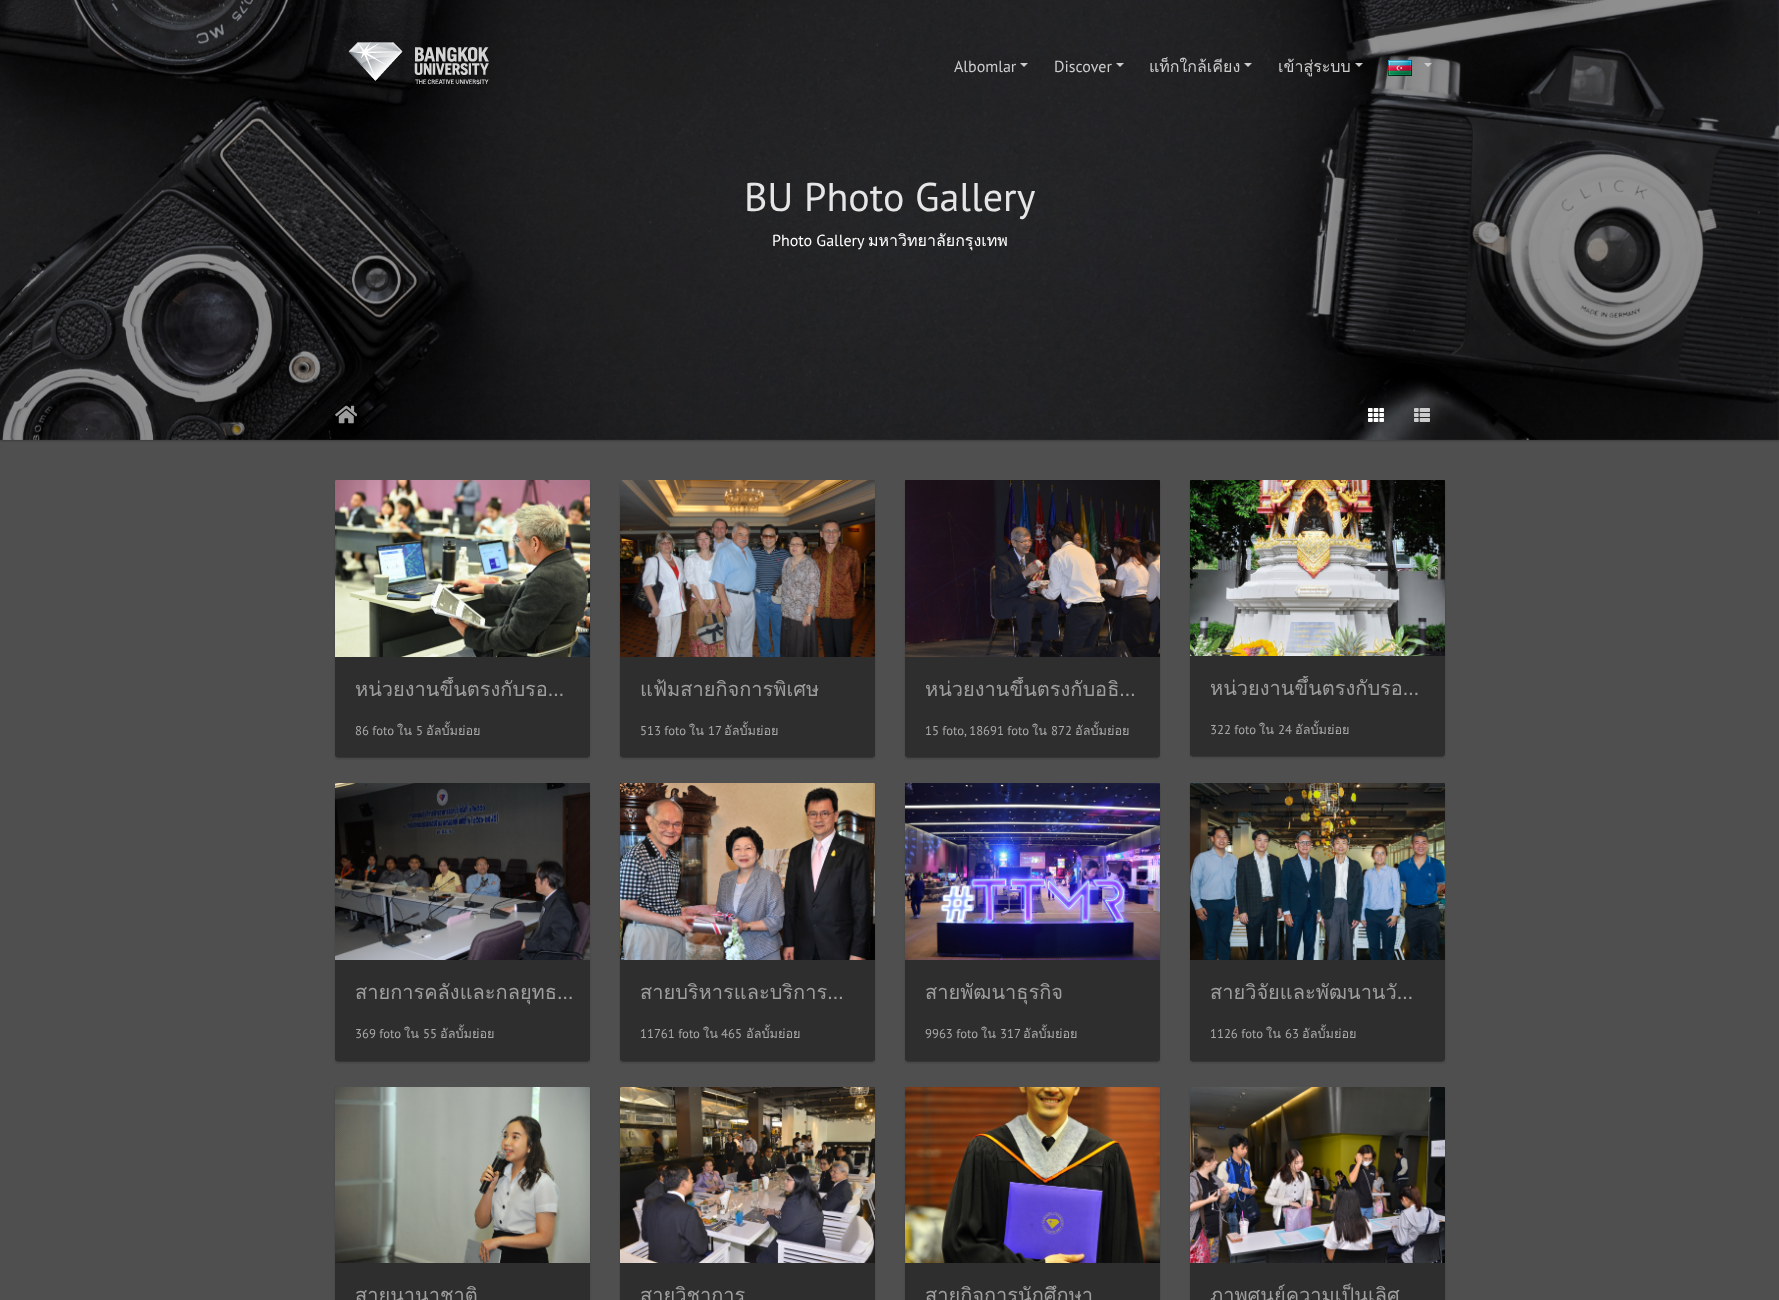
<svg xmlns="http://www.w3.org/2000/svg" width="1779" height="1300">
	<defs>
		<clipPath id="clip1"><rect x="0" y="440" width="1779" height="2" /></clipPath>
		<clipPath id="clip2"><rect x="355" y="677" width="215" height="24" /></clipPath>
		<clipPath id="clip3"><rect x="925" y="677" width="215" height="24" /></clipPath>
		<clipPath id="clip4"><rect x="1210" y="676" width="215" height="24" /></clipPath>
	</defs>
	<rect width="100%" height="100%" fill="#4F4F4F" />
	<image x="0" y="0" width="1779" height="440" href="assets/img3.png" />
	<image x="348" y="42" width="141" height="43" href="assets/img1.png" />
	<text x="954" y="72" font-family="PT Sans" font-size="16" fill="#CCCCCC">Albomlar</text>
	<path d="M1020 63H1028L1024 67Z" fill="#CCCCCC" />
	<text x="1054" y="72" font-family="PT Sans" font-size="16" fill="#CCCCCC">Discover</text>
	<path d="M1116 63H1124L1120 67Z" fill="#CCCCCC" />
	<text x="1149" y="72" font-family="Loma" font-size="16" fill="#CCCCCC">แท็กใกล้เคียง</text>
	<path d="M1244 63H1252L1248 67Z" fill="#CCCCCC" />
	<text x="1278" y="72" font-family="Loma" font-size="16" fill="#CCCCCC">เข้าสู่ระบบ</text>
	<path d="M1355 63H1363L1359 67Z" fill="#CCCCCC" />
	<image x="1388" y="60" width="24" height="16" href="assets/img2.png" />
	<path d="M1424 63H1432L1428 67Z" fill="#CCCCCC" />
	<text x="744" y="211" font-family="PT Sans" font-size="40" fill="#E6E6E6">BU Photo Gallery</text>
	<text x="772" y="246" font-family="PT Sans" font-size="16" fill="#FFFFFF">Photo Gallery</text>
	<text x="868" y="246" font-family="Loma" font-size="16" fill="#FFFFFF">มหาวิทยาลัยกรุงเทพ</text>
	<g clip-path="url(#clip1)">
		<rect x="0" y="390" width="1779" height="51" fill="#000000" fill-opacity="0.24" filter="blur(1px)" />
	</g>
	<image x="335" y="405" width="22" height="19" href="assets/img4.png" />
	<image x="1368" y="408" width="16" height="14" href="assets/img5.png" />
	<image x="1414" y="408" width="16" height="14" href="assets/img6.png" />
	<rect x="337" y="485" width="251" height="273" fill="#000000" fill-opacity="0.2" filter="blur(0.5px)" />
	<rect x="335" y="482" width="255" height="277" rx="2" fill="#000000" fill-opacity="0.14" filter="blur(1px)" />
	<rect x="335" y="480" width="255" height="277" rx="2" fill="#2E2E2E" />
	<image x="335" y="480" width="255" height="177" href="assets/img7.png" />
	<g clip-path="url(#clip2)">
		<text x="355" y="696" font-family="Loma" font-size="20" fill="#9E9E9E">หน่วยงานขึ้นตรงกับรอ…</text>
	</g>
	<text x="355" y="735" font-family="PT Sans" font-size="12.75" fill="#A9A9A9">86 foto</text>
	<text x="397" y="735" font-family="Loma" font-size="12.75" fill="#A9A9A9">ใน</text>
	<text x="416" y="735" font-family="PT Sans" font-size="12.75" fill="#A9A9A9">5</text>
	<text x="426" y="735" font-family="Loma" font-size="12.75" fill="#A9A9A9">อัลบั้มย่อย</text>
	<rect x="622" y="485" width="251" height="273" fill="#000000" fill-opacity="0.2" filter="blur(0.5px)" />
	<rect x="620" y="482" width="255" height="277" rx="2" fill="#000000" fill-opacity="0.14" filter="blur(1px)" />
	<rect x="620" y="480" width="255" height="277" rx="2" fill="#2E2E2E" />
	<image x="620" y="480" width="255" height="177" href="assets/img8.png" />
	<text x="640" y="696" font-family="Loma" font-size="20" fill="#9E9E9E">แฟ้มสายกิจการพิเศษ</text>
	<text x="640" y="735" font-family="PT Sans" font-size="12.75" fill="#A9A9A9">513 foto</text>
	<text x="689" y="735" font-family="Loma" font-size="12.75" fill="#A9A9A9">ใน</text>
	<text x="708" y="735" font-family="PT Sans" font-size="12.75" fill="#A9A9A9">17</text>
	<text x="724" y="735" font-family="Loma" font-size="12.75" fill="#A9A9A9">อัลบั้มย่อย</text>
	<rect x="907" y="485" width="251" height="273" fill="#000000" fill-opacity="0.2" filter="blur(0.5px)" />
	<rect x="905" y="482" width="255" height="277" rx="2" fill="#000000" fill-opacity="0.14" filter="blur(1px)" />
	<rect x="905" y="480" width="255" height="277" rx="2" fill="#2E2E2E" />
	<image x="905" y="480" width="255" height="177" href="assets/img9.png" />
	<g clip-path="url(#clip3)">
		<text x="925" y="696" font-family="Loma" font-size="20" fill="#9E9E9E">หน่วยงานขึ้นตรงกับอธิ…</text>
	</g>
	<text x="925" y="735" font-family="PT Sans" font-size="12.75" fill="#A9A9A9">15 foto, 18691 foto</text>
	<text x="1032" y="735" font-family="Loma" font-size="12.75" fill="#A9A9A9">ใน</text>
	<text x="1051" y="735" font-family="PT Sans" font-size="12.75" fill="#A9A9A9">872</text>
	<text x="1075" y="735" font-family="Loma" font-size="12.75" fill="#A9A9A9">อัลบั้มย่อย</text>
	<rect x="1192" y="485" width="251" height="272" fill="#000000" fill-opacity="0.2" filter="blur(0.5px)" />
	<rect x="1190" y="482" width="255" height="276" rx="2" fill="#000000" fill-opacity="0.14" filter="blur(1px)" />
	<rect x="1190" y="480" width="255" height="276" rx="2" fill="#2E2E2E" />
	<image x="1190" y="480" width="255" height="176" href="assets/img10.png" />
	<g clip-path="url(#clip4)">
		<text x="1210" y="695" font-family="Loma" font-size="20" fill="#9E9E9E">หน่วยงานขึ้นตรงกับรอ…</text>
	</g>
	<text x="1210" y="734" font-family="PT Sans" font-size="12.75" fill="#A9A9A9">322 foto</text>
	<text x="1259" y="734" font-family="Loma" font-size="12.75" fill="#A9A9A9">ใน</text>
	<text x="1278" y="734" font-family="PT Sans" font-size="12.75" fill="#A9A9A9">24</text>
	<text x="1295" y="734" font-family="Loma" font-size="12.75" fill="#A9A9A9">อัลบั้มย่อย</text>
	<rect x="337" y="788" width="251" height="274" fill="#000000" fill-opacity="0.2" filter="blur(0.5px)" />
	<rect x="335" y="785" width="255" height="278" rx="2" fill="#000000" fill-opacity="0.14" filter="blur(1px)" />
	<rect x="335" y="783" width="255" height="278" rx="2" fill="#2E2E2E" />
	<image x="335" y="783" width="255" height="177" href="assets/img11.png" />
	<text x="355" y="999" font-family="Loma" font-size="20" fill="#9E9E9E">สายการคลังและกลยุทธ…</text>
	<text x="355" y="1038" font-family="PT Sans" font-size="12.75" fill="#A9A9A9">369 foto</text>
	<text x="404" y="1038" font-family="Loma" font-size="12.75" fill="#A9A9A9">ใน</text>
	<text x="423" y="1038" font-family="PT Sans" font-size="12.75" fill="#A9A9A9">55</text>
	<text x="440" y="1038" font-family="Loma" font-size="12.75" fill="#A9A9A9">อัลบั้มย่อย</text>
	<rect x="622" y="788" width="251" height="274" fill="#000000" fill-opacity="0.2" filter="blur(0.5px)" />
	<rect x="620" y="785" width="255" height="278" rx="2" fill="#000000" fill-opacity="0.14" filter="blur(1px)" />
	<rect x="620" y="783" width="255" height="278" rx="2" fill="#2E2E2E" />
	<image x="620" y="783" width="255" height="177" href="assets/img12.png" />
	<text x="640" y="999" font-family="Loma" font-size="20" fill="#9E9E9E">สายบริหารและบริการ…</text>
	<text x="640" y="1038" font-family="PT Sans" font-size="12.75" fill="#A9A9A9">11761 foto</text>
	<text x="703" y="1038" font-family="Loma" font-size="12.75" fill="#A9A9A9">ใน</text>
	<text x="721" y="1038" font-family="PT Sans" font-size="12.75" fill="#A9A9A9">465</text>
	<text x="746" y="1038" font-family="Loma" font-size="12.75" fill="#A9A9A9">อัลบั้มย่อย</text>
	<rect x="907" y="788" width="251" height="274" fill="#000000" fill-opacity="0.2" filter="blur(0.5px)" />
	<rect x="905" y="785" width="255" height="278" rx="2" fill="#000000" fill-opacity="0.14" filter="blur(1px)" />
	<rect x="905" y="783" width="255" height="278" rx="2" fill="#2E2E2E" />
	<image x="905" y="783" width="255" height="177" href="assets/img13.png" />
	<text x="925" y="999" font-family="Loma" font-size="20" fill="#9E9E9E">สายพัฒนาธุรกิจ</text>
	<text x="925" y="1038" font-family="PT Sans" font-size="12.75" fill="#A9A9A9">9963 foto</text>
	<text x="981" y="1038" font-family="Loma" font-size="12.75" fill="#A9A9A9">ใน</text>
	<text x="1000" y="1038" font-family="PT Sans" font-size="12.75" fill="#A9A9A9">317</text>
	<text x="1023" y="1038" font-family="Loma" font-size="12.75" fill="#A9A9A9">อัลบั้มย่อย</text>
	<rect x="1192" y="788" width="251" height="274" fill="#000000" fill-opacity="0.2" filter="blur(0.5px)" />
	<rect x="1190" y="785" width="255" height="278" rx="2" fill="#000000" fill-opacity="0.14" filter="blur(1px)" />
	<rect x="1190" y="783" width="255" height="278" rx="2" fill="#2E2E2E" />
	<image x="1190" y="783" width="255" height="177" href="assets/img14.png" />
	<text x="1210" y="999" font-family="Loma" font-size="20" fill="#9E9E9E">สายวิจัยและพัฒนานวั…</text>
	<text x="1210" y="1038" font-family="PT Sans" font-size="12.75" fill="#A9A9A9">1126 foto</text>
	<text x="1266" y="1038" font-family="Loma" font-size="12.75" fill="#A9A9A9">ใน</text>
	<text x="1285" y="1038" font-family="PT Sans" font-size="12.75" fill="#A9A9A9">63</text>
	<text x="1302" y="1038" font-family="Loma" font-size="12.75" fill="#A9A9A9">อัลบั้มย่อย</text>
	<rect x="335" y="1089" width="255" height="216" rx="2" fill="#000000" fill-opacity="0.14" filter="blur(1px)" />
	<rect x="335" y="1087" width="255" height="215" rx="2" fill="#2E2E2E" />
	<image x="335" y="1087" width="255" height="176" href="assets/img15.png" />
	<text x="355" y="1302" font-family="Loma" font-size="20" fill="#9E9E9E">สายนานาชาติ</text>
	<rect x="620" y="1089" width="255" height="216" rx="2" fill="#000000" fill-opacity="0.14" filter="blur(1px)" />
	<rect x="620" y="1087" width="255" height="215" rx="2" fill="#2E2E2E" />
	<image x="620" y="1087" width="255" height="176" href="assets/img16.png" />
	<text x="640" y="1302" font-family="Loma" font-size="20" fill="#9E9E9E">สายวิชาการ</text>
	<rect x="905" y="1089" width="255" height="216" rx="2" fill="#000000" fill-opacity="0.14" filter="blur(1px)" />
	<rect x="905" y="1087" width="255" height="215" rx="2" fill="#2E2E2E" />
	<image x="905" y="1087" width="255" height="176" href="assets/img17.png" />
	<text x="925" y="1302" font-family="Loma" font-size="20" fill="#9E9E9E">สายกิจการนักศึกษา</text>
	<rect x="1190" y="1089" width="255" height="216" rx="2" fill="#000000" fill-opacity="0.14" filter="blur(1px)" />
	<rect x="1190" y="1087" width="255" height="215" rx="2" fill="#2E2E2E" />
	<image x="1190" y="1087" width="255" height="176" href="assets/img18.png" />
	<text x="1210" y="1302" font-family="Loma" font-size="20" fill="#9E9E9E">ภาพศูนย์ความเป็นเลิศ</text>
</svg>
